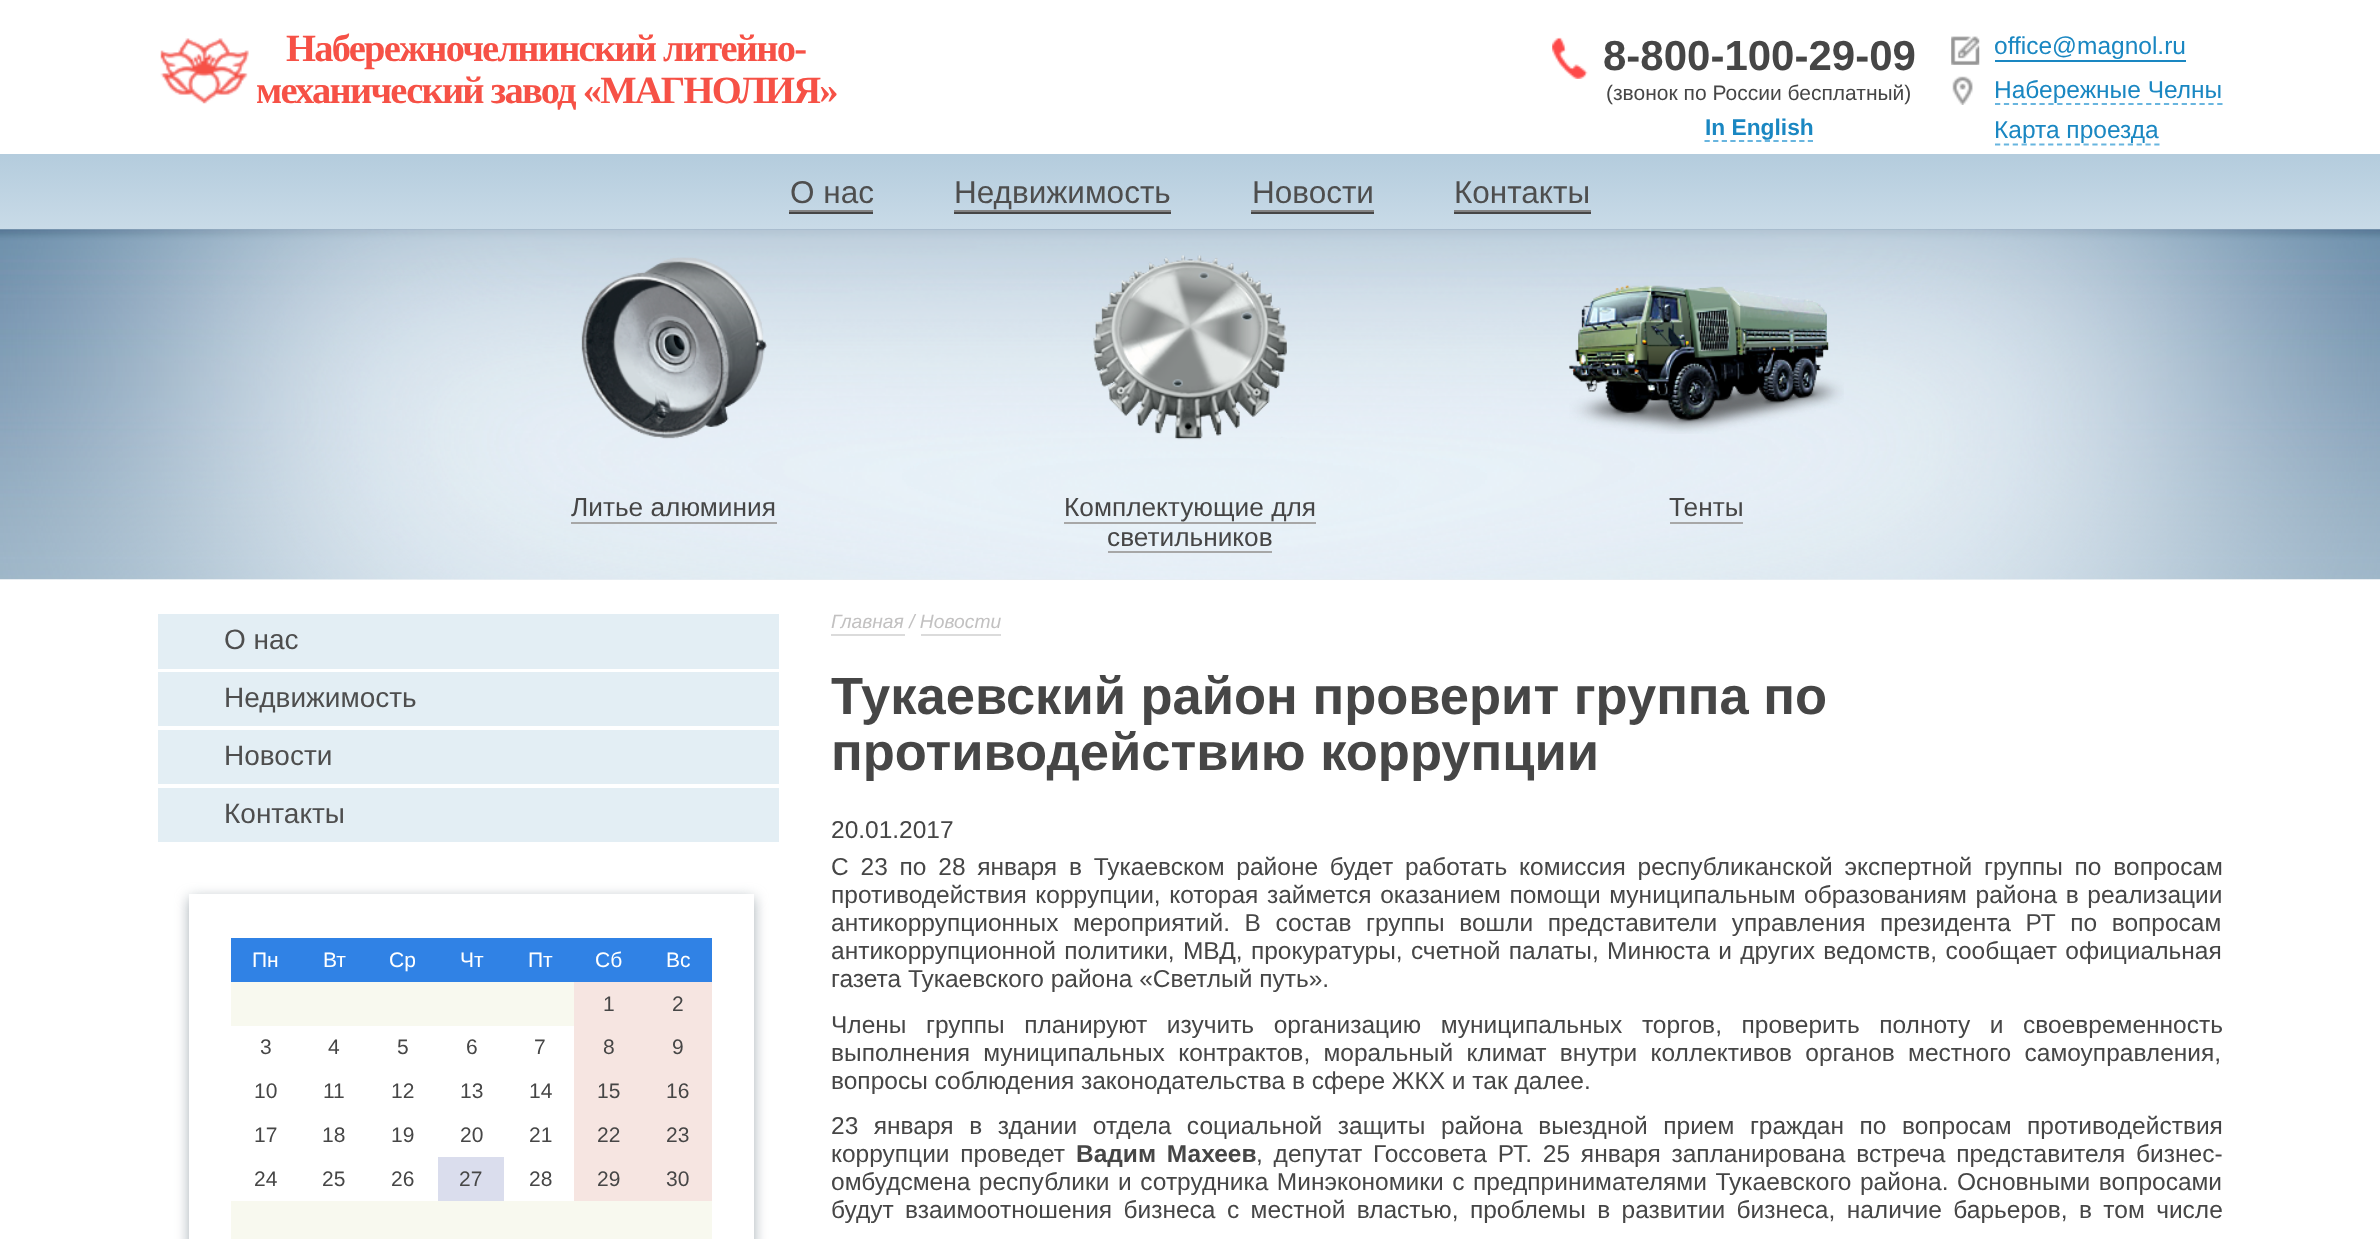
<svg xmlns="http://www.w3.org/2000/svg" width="2380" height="1239">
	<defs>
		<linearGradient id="g1" gradientUnits="userSpaceOnUse" x1="1190" y1="154" x2="1190" y2="240"><stop offset="0.01" stop-color="#B4CCDD" /><stop offset="1" stop-color="#CCDDE9" /></linearGradient>
	</defs>
	<rect width="100%" height="100%" fill="#FFFFFF" />
	<image x="160" y="38" width="89" height="66" href="assets/img1.png" />
	<g font-family="Liberation Serif" font-size="38.5" font-weight="700" letter-spacing="-1.75" fill="#F65146">
		<text x="286" y="61">Набережночелнинский литейно-</text>
		<text x="256" y="103">механический завод «МАГНОЛИЯ»</text>
	</g>
	<image x="1552" y="37" width="36" height="42" href="assets/img2.png" />
	<text x="1603" y="70" font-family="Liberation Sans" font-size="42" font-weight="700" fill="#464646">8-800-100-29-09</text>
	<text x="1606" y="100" font-family="Liberation Sans" font-size="21" fill="#464646">(звонок по России бесплатный)</text>
	<path d="M1704.5 141H1813" fill="none" stroke="#68B5DF" stroke-width="1.8" stroke-dasharray="5.25 3.36" />
	<text x="1705" y="135" font-family="Liberation Sans" font-size="22.75" font-weight="700" fill="#1A87C2">In English</text>
	<image x="1951" y="36" width="29" height="29" href="assets/img3.png" />
	<text x="1994" y="54" font-family="Liberation Sans" font-size="24.5" fill="#1A87C2">office@magnol.ru</text>
	<rect x="1995" y="60" width="191" height="2" fill="#1A87C2" />
	<image x="1952" y="76" width="21" height="29" href="assets/img4.png" />
	<path d="M1995 104H2222.5" fill="none" stroke="#68B5DF" stroke-width="1.8" stroke-dasharray="5.25 3.64" />
	<text x="1994" y="98" font-family="Liberation Sans" font-size="24.5" fill="#1A87C2">Набережные Челны</text>
	<path d="M1995 144.5H2159.5" fill="none" stroke="#68B5DF" stroke-width="1.8" stroke-dasharray="5.25 3.6" />
	<text x="1994" y="138" font-family="Liberation Sans" font-size="24.5" fill="#1A87C2">Карта проезда</text>
	<rect x="0" y="154" width="2380" height="76" fill="url(#g1)" />
	<rect x="789" y="212" width="84" height="2" fill="#464646" />
	<text x="790" y="203" font-family="Liberation Sans" font-size="31.5" fill="#4E4E4E">О нас</text>
	<rect x="789" y="210" width="84" height="2" fill="#838383" />
	<rect x="954" y="212" width="217" height="2" fill="#464646" />
	<text x="954" y="203" font-family="Liberation Sans" font-size="31.5" fill="#4E4E4E">Недвижимость</text>
	<rect x="954" y="210" width="217" height="2" fill="#838383" />
	<rect x="1251" y="212" width="123" height="2" fill="#464646" />
	<text x="1252" y="203" font-family="Liberation Sans" font-size="31.5" fill="#4E4E4E">Новости</text>
	<rect x="1251" y="210" width="123" height="2" fill="#838383" />
	<rect x="1454" y="212" width="137" height="2" fill="#464646" />
	<text x="1454" y="203" font-family="Liberation Sans" font-size="31.5" fill="#4E4E4E">Контакты</text>
	<rect x="1454" y="210" width="137" height="2" fill="#838383" />
	<image x="0" y="229" width="2380" height="351" href="assets/img5.png" />
	<image x="581" y="257" width="186" height="182" href="assets/img6.png" />
	<text x="571" y="516" font-family="Liberation Sans" font-size="26.25" fill="#464646">Литье алюминия</text>
	<rect x="571" y="522" width="206" height="2" fill="#A7A7A7" />
	<image x="1093" y="255" width="194" height="185" href="assets/img7.png" />
	<text x="1064" y="516" font-family="Liberation Sans" font-size="26.25" fill="#464646">Комплектующие для</text>
	<rect x="1064" y="522" width="252" height="2" fill="#A7A7A7" />
	<text x="1107" y="546" font-family="Liberation Sans" font-size="26.25" fill="#464646">светильников</text>
	<rect x="1108" y="551" width="164" height="2" fill="#A7A7A7" />
	<image x="1569" y="285" width="275" height="149" href="assets/img8.png" />
	<text x="1669" y="516" font-family="Liberation Sans" font-size="26.25" fill="#464646">Тенты</text>
	<rect x="1670" y="522" width="73" height="2" fill="#A7A7A7" />
	<rect x="158" y="614" width="621" height="55" fill="#E3EEF4" />
	<text x="224" y="649" font-family="Liberation Sans" font-size="28" fill="#4E4E4E">О нас</text>
	<rect x="158" y="672" width="621" height="54" fill="#E3EEF4" />
	<text x="224" y="707" font-family="Liberation Sans" font-size="28" fill="#4E4E4E">Недвижимость</text>
	<rect x="158" y="730" width="621" height="54" fill="#E3EEF4" />
	<text x="224" y="765" font-family="Liberation Sans" font-size="28" fill="#4E4E4E">Новости</text>
	<rect x="158" y="788" width="621" height="54" fill="#E3EEF4" />
	<text x="224" y="823" font-family="Liberation Sans" font-size="28" fill="#4E4E4E">Контакты</text>
	<rect x="189" y="898" width="565" height="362" fill="#87949C" fill-opacity="0.75" filter="blur(7px)" />
	<rect x="189" y="894" width="565" height="345" fill="#FFFFFF" />
	<rect x="231" y="938" width="481" height="44" fill="#3082E5" />
	<g font-family="Liberation Sans" font-size="21" fill="#FFFFFF">
		<text x="252" y="967">Пн</text>
		<text x="323" y="967">Вт</text>
		<text x="389" y="967">Ср</text>
		<text x="460" y="967">Чт</text>
		<text x="528" y="967">Пт</text>
		<text x="595" y="967">Сб</text>
		<text x="666" y="967">Вс</text>
	</g>
	<rect x="231" y="982" width="343" height="44" fill="#F8F9EF" />
	<rect x="574" y="982" width="138" height="44" fill="#F6E5E1" />
	<g font-family="Liberation Sans" font-size="21" fill="#464646">
		<text x="603" y="1011">1</text>
		<text x="672" y="1011">2</text>
		<text x="260" y="1054">3</text>
		<text x="328" y="1054">4</text>
		<text x="397" y="1054">5</text>
		<text x="466" y="1054">6</text>
		<text x="534" y="1054">7</text>
	</g>
	<rect x="574" y="1026" width="138" height="43" fill="#F6E5E1" />
	<g font-family="Liberation Sans" font-size="21" fill="#464646">
		<text x="603" y="1054">8</text>
		<text x="672" y="1054">9</text>
		<text x="254" y="1098">10</text>
		<text x="323" y="1098">11</text>
		<text x="391" y="1098">12</text>
		<text x="460" y="1098">13</text>
		<text x="529" y="1098">14</text>
	</g>
	<rect x="574" y="1069" width="138" height="44" fill="#F6E5E1" />
	<g font-family="Liberation Sans" font-size="21" fill="#464646">
		<text x="597" y="1098">15</text>
		<text x="666" y="1098">16</text>
		<text x="254" y="1142">17</text>
		<text x="322" y="1142">18</text>
		<text x="391" y="1142">19</text>
		<text x="460" y="1142">20</text>
		<text x="529" y="1142">21</text>
	</g>
	<rect x="574" y="1113" width="138" height="44" fill="#F6E5E1" />
	<g font-family="Liberation Sans" font-size="21" fill="#464646">
		<text x="597" y="1142">22</text>
		<text x="666" y="1142">23</text>
		<text x="254" y="1186">24</text>
		<text x="322" y="1186">25</text>
		<text x="391" y="1186">26</text>
	</g>
	<rect x="438" y="1157" width="66" height="44" fill="#DADDED" />
	<g font-family="Liberation Sans" font-size="21" fill="#464646">
		<text x="459" y="1186">27</text>
		<text x="529" y="1186">28</text>
	</g>
	<rect x="574" y="1157" width="138" height="44" fill="#F6E5E1" />
	<g font-family="Liberation Sans" font-size="21" fill="#464646">
		<text x="597" y="1186">29</text>
		<text x="666" y="1186">30</text>
	</g>
	<rect x="231" y="1201" width="481" height="38" fill="#F8F9EF" />
	<rect x="831" y="634" width="74" height="2" fill="#DBDBDB" />
	<text x="831" y="628" font-family="Liberation Sans" font-size="19.25" font-style="italic" fill="#C2C1C1">Главная / Новости</text>
	<rect x="921" y="634" width="80" height="2" fill="#DBDBDB" />
	<g font-family="Liberation Sans" font-size="52.5" font-weight="700" fill="#464646">
		<text x="831" y="714">Тукаевский район проверит группа по</text>
		<text x="831" y="770">противодействию коррупции</text>
	</g>
	<g font-family="Liberation Sans" font-size="24.5" fill="#464646">
		<text x="831" y="838">20.01.2017</text>
		<text x="831" y="875" word-spacing="5">С 23 по 28 января в Тукаевском районе будет работать комиссия республиканской экспертной группы по вопросам</text>
		<text x="831" y="903" word-spacing="1.75">противодействия коррупции, которая займется оказанием помощи муниципальным образованиям района в реализации</text>
		<text x="831" y="931" word-spacing="7.75">антикоррупционных мероприятий. В состав группы вошли представители управления президента РТ по вопросам</text>
		<text x="831" y="959" word-spacing="1.5">антикоррупционной политики, МВД, прокуратуры, счетной палаты, Минюста и других ведомств, сообщает официальная</text>
		<text x="831" y="987">газета Тукаевского района «Светлый путь».</text>
		<text x="831" y="1033" word-spacing="12.75">Члены группы планируют изучить организацию муниципальных торгов, проверить полноту и своевременность</text>
		<text x="831" y="1061" word-spacing="6.5">выполнения муниципальных контрактов, моральный климат внутри коллективов органов местного самоуправления,</text>
		<text x="831" y="1089">вопросы соблюдения законодательства в сфере ЖКХ и так далее.</text>
		<text x="831" y="1134" word-spacing="8.75">23 января в здании отдела социальной защиты района выездной прием граждан по вопросам противодействия</text>
		<text x="831" y="1162" word-spacing="4">коррупции проведет</text>
	</g>
	<text x="1076" y="1162" word-spacing="4" font-family="Liberation Sans" font-size="24.5" font-weight="700" fill="#464646">Вадим Махеев</text>
	<g font-family="Liberation Sans" font-size="24.5" fill="#464646">
		<text x="1256" y="1162" word-spacing="4">, депутат Госсовета РТ. 25 января запланирована встреча представителя бизнес-</text>
		<text x="831" y="1190" word-spacing="1.75">омбудсмена республики и сотрудника Минэкономики с предпринимателями Тукаевского района. Основными вопросами</text>
		<text x="831" y="1218" word-spacing="4.6">будут взаимоотношения бизнеса с местной властью, проблемы в развитии бизнеса, наличие барьеров, в том числе</text>
	</g>
</svg>
